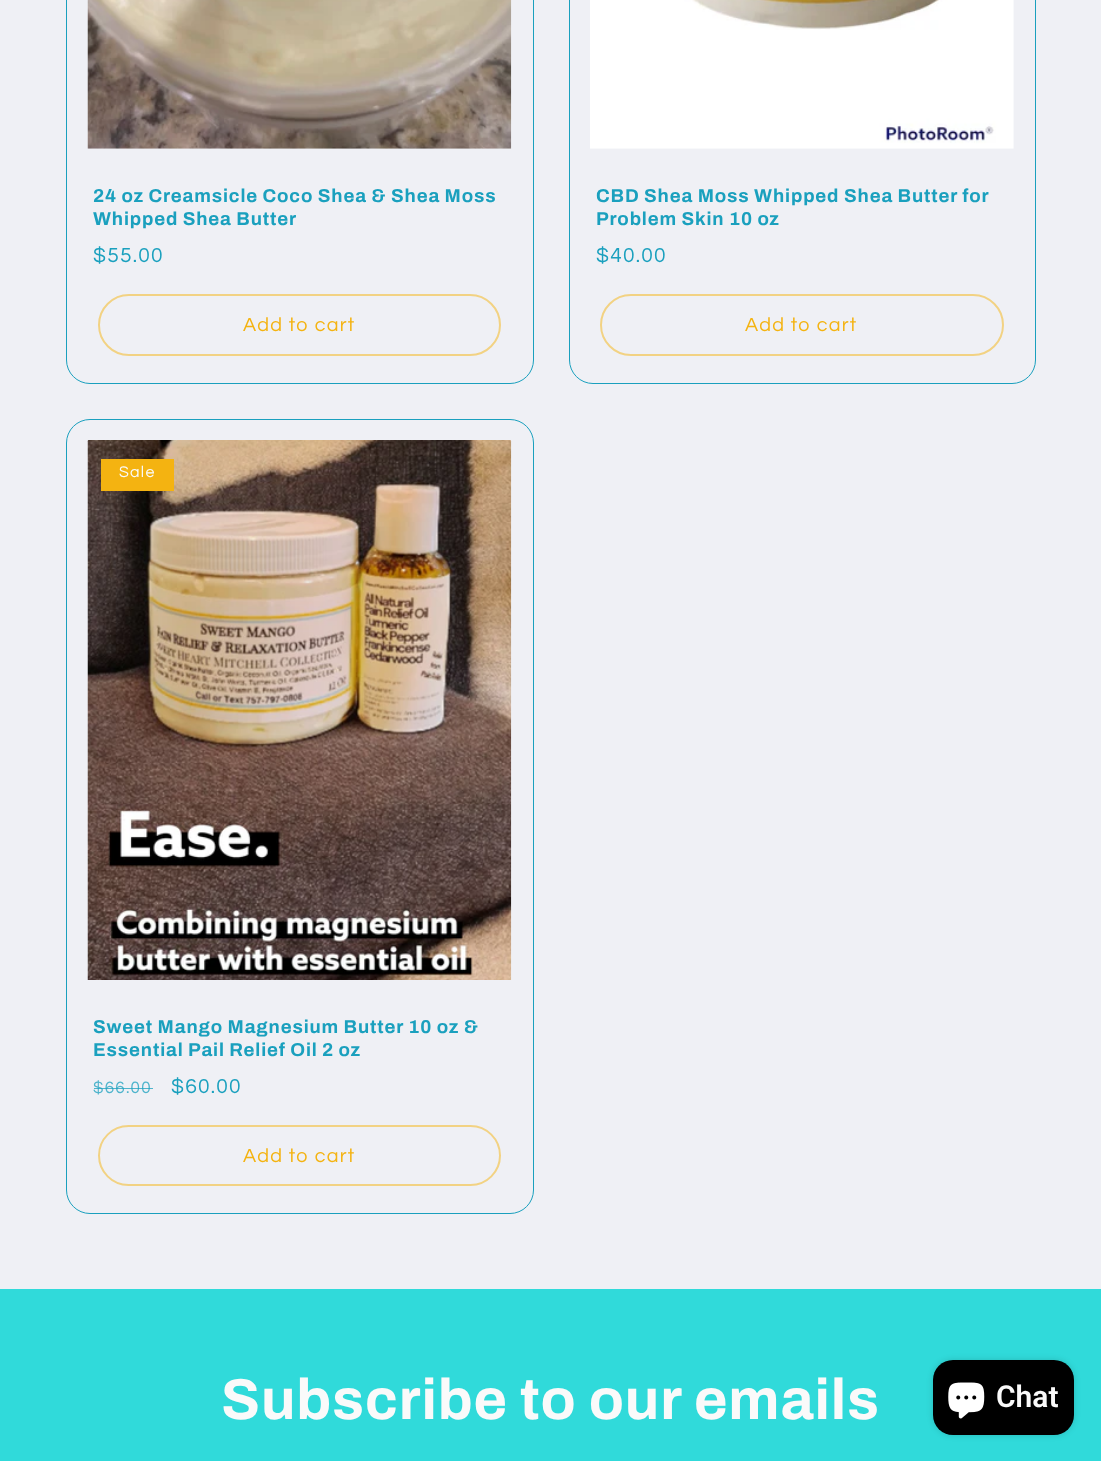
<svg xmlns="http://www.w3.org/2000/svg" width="1101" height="1461">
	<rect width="100%" height="100%" fill="#EFF0F5" />
	<rect x="66.5" y="-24.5" width="467" height="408" rx="23.5" fill="none" stroke="#1AA0BE" />
	<image x="87" y="0" width="425" height="149" href="assets/img1.png" />
	<g font-family="Archivo" font-size="18.7" font-weight="700" letter-spacing="0.85" fill="#1AA0BE">
		<text x="93" y="202">24 oz Creamsicle Coco Shea &amp; Shea Moss</text>
		<text x="93" y="225">Whipped Shea Butter</text>
	</g>
	<text x="93" y="262" font-family="Questrial" font-size="21" letter-spacing="1.25" fill="#1AA0BE">$55.00</text>
	<rect x="99" y="295" width="401" height="60" rx="30" fill="none" stroke="#F2D283" stroke-width="2" />
	<text x="243" y="331" font-family="Questrial" font-size="19.75" letter-spacing="1.25" fill="#F4B311">Add to cart</text>
	<rect x="569.5" y="-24.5" width="466" height="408" rx="23.5" fill="none" stroke="#1AA0BE" />
	<image x="590" y="0" width="424" height="149" href="assets/img2.png" />
	<g font-family="Archivo" font-size="18.7" font-weight="700" letter-spacing="0.85" fill="#1AA0BE">
		<text x="596" y="202">CBD Shea Moss Whipped</text>
		<text x="844" y="202">Shea Butter for</text>
		<text x="596" y="225">Problem Skin 10 oz</text>
	</g>
	<text x="596" y="262" font-family="Questrial" font-size="21" letter-spacing="1.25" fill="#1AA0BE">$40.00</text>
	<rect x="601" y="295" width="402" height="60" rx="30" fill="none" stroke="#F2D283" stroke-width="2" />
	<text x="745" y="331" font-family="Questrial" font-size="19.75" letter-spacing="1.25" fill="#F4B311">Add to cart</text>
	<rect x="66.5" y="419.5" width="467" height="794" rx="23.5" fill="none" stroke="#1AA0BE" />
	<image x="87" y="440" width="425" height="540" href="assets/img3.png" />
	<rect x="101" y="459" width="73" height="32" fill="#F4B311" />
	<text x="119" y="477" font-family="Questrial" font-size="16" letter-spacing="1.25" fill="#FAFAFA">Sale</text>
	<g font-family="Archivo" font-size="18.7" font-weight="700" letter-spacing="0.85" fill="#1AA0BE">
		<text x="93" y="1033">Sweet Mango Magnesium Butter 10 oz &amp;</text>
		<text x="93" y="1056">Essential Pail Relief Oil 2 oz</text>
	</g>
	<text x="93" y="1093" font-family="Questrial" font-size="17" letter-spacing="1.25" fill="#4FB4CC">$66.00</text>
	<rect x="94" y="1088" width="59" height="1" fill="#1AA0BE" fill-opacity="0.75" />
	<text x="171" y="1093" font-family="Questrial" font-size="21" letter-spacing="1.25" fill="#1AA0BE">$60.00</text>
	<rect x="99" y="1126" width="401" height="59" rx="29.5" fill="none" stroke="#F2D283" stroke-width="2" />
	<text x="243" y="1162" font-family="Questrial" font-size="19.75" letter-spacing="1.25" fill="#F4B311">Add to cart</text>
	<rect x="0" y="1289" width="1101" height="172" fill="#30DADA" />
	<text x="221" y="1419" font-family="Archivo" font-size="57.5" font-weight="700" letter-spacing="0.85" fill="#FAFAFA">Subscribe to our emails</text>
	<rect x="933" y="1360" width="141" height="75" rx="20" fill="#000000" fill-opacity="0.15" filter="blur(3px)" />
	<rect x="933" y="1360" width="141" height="75" rx="20" fill="#000000" />
	<image x="948" y="1382" width="37" height="37" href="assets/img4.png" />
	<text x="996" y="1407" font-family="Roboto" font-size="30" font-weight="600" fill="#FAFAFA">Chat</text>
</svg>
